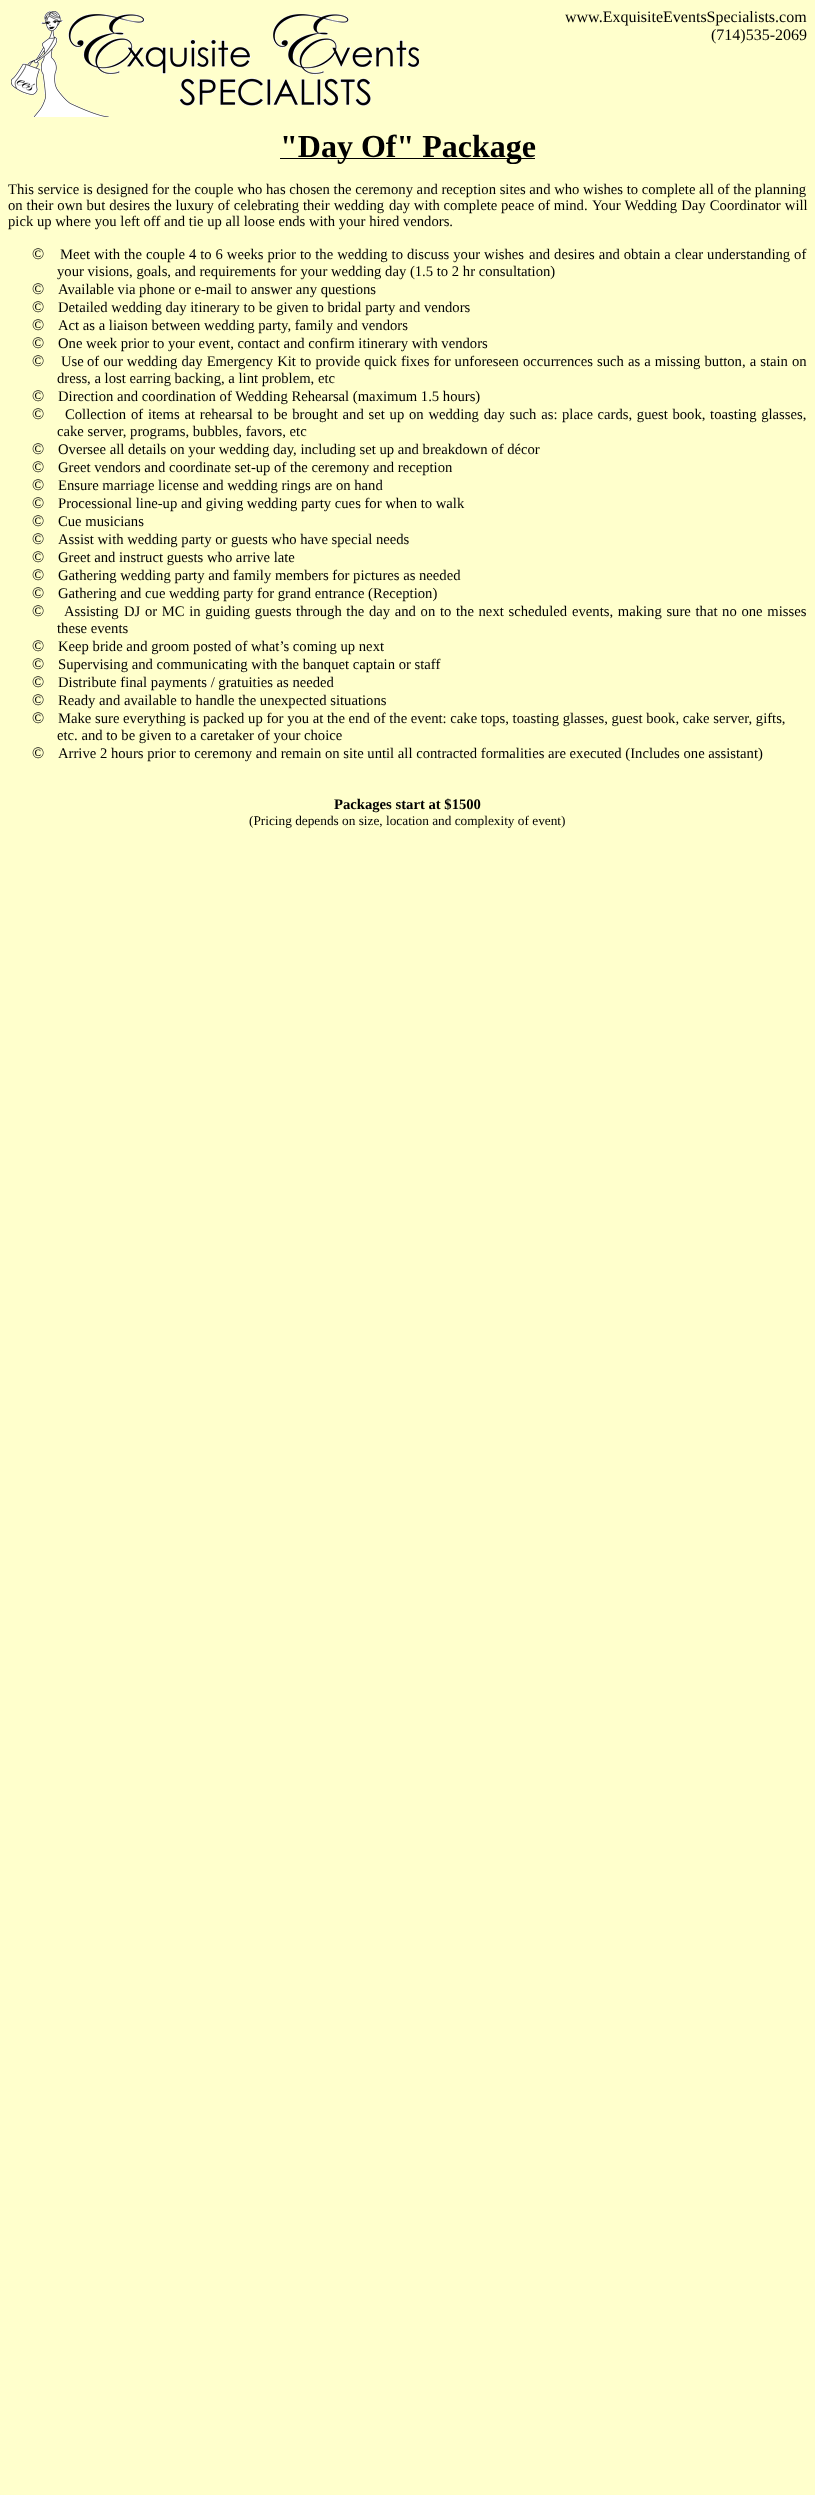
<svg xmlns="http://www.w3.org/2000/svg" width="815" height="2495">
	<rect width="100%" height="100%" fill="#FFFFCC" />
	<image x="11" y="11" width="408" height="106" href="assets/img1.png" />
	<g font-family="Liberation Serif" font-size="16" fill="#000000">
		<text x="565" y="22">www.ExquisiteEventsSpecialists.com</text>
		<text x="711" y="40">(714)535-2069</text>
	</g>
	<rect x="280" y="158" width="255" height="1" fill="#000000" />
	<text x="280" y="157" font-family="Liberation Serif" font-size="32" font-weight="700" fill="#000000">"Day Of" Package</text>
	<g font-family="Liberation Serif" font-size="14.67" fill="#000000">
		<text x="8" y="194">This service is designed for the couple who has chosen the ceremony and reception sites and who wishes to complete all of the planning</text>
		<text x="8" y="210" word-spacing="0.25">on their own but desires the luxury of celebrating their wedding</text>
		<text x="389" y="210">day with complete peace of mind.</text>
		<text x="592" y="210" word-spacing="0.5">Your Wedding Day Coordinator will</text>
		<text x="8" y="226">pick up where you left off and tie up all loose ends with your hired vendors.</text>
	</g>
	<text x="32" y="259" font-family="Liberation Serif" font-size="16" fill="#000000">©</text>
	<g font-family="Liberation Serif" font-size="14.67" fill="#000000">
		<text x="60" y="259">Meet</text>
		<text x="94" y="259" word-spacing="0.3">with the couple 4 to 6 weeks prior to the wedding to discuss your wishes</text>
		<text x="529" y="259" word-spacing="0.25">and desires and obtain a clear understanding of</text>
		<text x="57" y="276">your visions, goals, and requirements for your wedding day (1.5 to 2 hr consultation)</text>
	</g>
	<text x="32" y="294" font-family="Liberation Serif" font-size="16" fill="#000000">©</text>
	<text x="58" y="294" font-family="Liberation Serif" font-size="14.67" fill="#000000">Available via phone or e-mail to answer any questions</text>
	<text x="32" y="312" font-family="Liberation Serif" font-size="16" fill="#000000">©</text>
	<text x="58" y="312" font-family="Liberation Serif" font-size="14.67" fill="#000000">Detailed wedding day itinerary to be given to bridal party and vendors</text>
	<text x="32" y="330" font-family="Liberation Serif" font-size="16" fill="#000000">©</text>
	<text x="58" y="330" font-family="Liberation Serif" font-size="14.67" fill="#000000">Act as a liaison between wedding party, family and vendors</text>
	<text x="32" y="348" font-family="Liberation Serif" font-size="16" fill="#000000">©</text>
	<text x="58" y="348" font-family="Liberation Serif" font-size="14.67" fill="#000000">One week prior to your event, contact and confirm itinerary with vendors</text>
	<text x="32" y="366" font-family="Liberation Serif" font-size="16" fill="#000000">©</text>
	<g font-family="Liberation Serif" font-size="14.67" fill="#000000">
		<text x="61" y="366">Use</text>
		<text x="87" y="366" word-spacing="0.4">of our wedding day Emergency Kit to provide quick fixes for unforeseen</text>
		<text x="523" y="366" word-spacing="0.4">occurrences such as a missing button, a stain on</text>
		<text x="57" y="383">dress, a lost earring backing, a lint problem, etc</text>
	</g>
	<text x="32" y="401" font-family="Liberation Serif" font-size="16" fill="#000000">©</text>
	<text x="58" y="401" font-family="Liberation Serif" font-size="14.67" fill="#000000">Direction and coordination of Wedding Rehearsal (maximum 1.5 hours)</text>
	<text x="32" y="419" font-family="Liberation Serif" font-size="16" fill="#000000">©</text>
	<g font-family="Liberation Serif" font-size="14.67" fill="#000000">
		<text x="65" y="419">Collection</text>
		<text x="131" y="419" word-spacing="1.1">of items at rehearsal to be brought and set up on wedding day such as:</text>
		<text x="562" y="419" word-spacing="1">place cards, guest book, toasting glasses,</text>
		<text x="57" y="436">cake server, programs, bubbles, favors, etc</text>
	</g>
	<text x="32" y="454" font-family="Liberation Serif" font-size="16" fill="#000000">©</text>
	<text x="58" y="454" font-family="Liberation Serif" font-size="14.67" fill="#000000">Oversee all details on your wedding day, including set up and breakdown of décor</text>
	<text x="32" y="472" font-family="Liberation Serif" font-size="16" fill="#000000">©</text>
	<text x="58" y="472" font-family="Liberation Serif" font-size="14.67" fill="#000000">Greet vendors and coordinate set-up of the ceremony and reception</text>
	<text x="32" y="490" font-family="Liberation Serif" font-size="16" fill="#000000">©</text>
	<text x="58" y="490" font-family="Liberation Serif" font-size="14.67" fill="#000000">Ensure marriage license and wedding rings are on hand</text>
	<text x="32" y="508" font-family="Liberation Serif" font-size="16" fill="#000000">©</text>
	<text x="58" y="508" font-family="Liberation Serif" font-size="14.67" fill="#000000">Processional line-up and giving wedding party cues for when to walk</text>
	<text x="32" y="526" font-family="Liberation Serif" font-size="16" fill="#000000">©</text>
	<text x="58" y="526" font-family="Liberation Serif" font-size="14.67" fill="#000000">Cue musicians</text>
	<text x="32" y="544" font-family="Liberation Serif" font-size="16" fill="#000000">©</text>
	<text x="58" y="544" font-family="Liberation Serif" font-size="14.67" fill="#000000">Assist with wedding party or guests who have special needs</text>
	<text x="32" y="562" font-family="Liberation Serif" font-size="16" fill="#000000">©</text>
	<text x="58" y="562" font-family="Liberation Serif" font-size="14.67" fill="#000000">Greet and instruct guests who arrive late</text>
	<text x="32" y="580" font-family="Liberation Serif" font-size="16" fill="#000000">©</text>
	<text x="58" y="580" font-family="Liberation Serif" font-size="14.67" fill="#000000">Gathering wedding party and family members for pictures as needed</text>
	<text x="32" y="598" font-family="Liberation Serif" font-size="16" fill="#000000">©</text>
	<text x="58" y="598" font-family="Liberation Serif" font-size="14.67" fill="#000000">Gathering and cue wedding party for grand entrance (Reception)</text>
	<text x="32" y="616" font-family="Liberation Serif" font-size="16" fill="#000000">©</text>
	<g font-family="Liberation Serif" font-size="14.67" fill="#000000">
		<text x="64" y="616">Assisting</text>
		<text x="124" y="616" word-spacing="1">DJ or MC in guiding guests through the day and on to the next scheduled</text>
		<text x="572" y="616" word-spacing="1">events, making sure that no one misses</text>
		<text x="57" y="633">these events</text>
	</g>
	<text x="32" y="651" font-family="Liberation Serif" font-size="16" fill="#000000">©</text>
	<text x="58" y="651" font-family="Liberation Serif" font-size="14.67" fill="#000000">Keep bride and groom posted of what’s coming up next</text>
	<text x="32" y="669" font-family="Liberation Serif" font-size="16" fill="#000000">©</text>
	<text x="58" y="669" font-family="Liberation Serif" font-size="14.67" fill="#000000">Supervising and communicating with the banquet captain or staff</text>
	<text x="32" y="687" font-family="Liberation Serif" font-size="16" fill="#000000">©</text>
	<text x="58" y="687" font-family="Liberation Serif" font-size="14.67" fill="#000000">Distribute final payments / gratuities as needed</text>
	<text x="32" y="705" font-family="Liberation Serif" font-size="16" fill="#000000">©</text>
	<text x="58" y="705" font-family="Liberation Serif" font-size="14.67" fill="#000000">Ready and available to handle the unexpected situations</text>
	<text x="32" y="723" font-family="Liberation Serif" font-size="16" fill="#000000">©</text>
	<g font-family="Liberation Serif" font-size="14.67" fill="#000000">
		<text x="58" y="723">Make sure everything is packed up for you at the end of the event: cake tops, toasting glasses, guest book, cake server, gifts,</text>
		<text x="57" y="740">etc. and to be given to a caretaker of your choice</text>
	</g>
	<text x="32" y="758" font-family="Liberation Serif" font-size="16" fill="#000000">©</text>
	<g font-family="Liberation Serif" font-size="14.67" fill="#000000">
		<text x="58" y="758">Arrive 2 hours prior to ceremony and remain on site until all contracted formalities</text>
		<text x="548" y="758">are executed (Includes one assistant)</text>
	</g>
	<text x="334" y="809" font-family="Liberation Serif" font-size="14.67" font-weight="700" fill="#000000">Packages start at $1500</text>
	<text x="249" y="825" font-family="Liberation Serif" font-size="13.3" fill="#000000">(Pricing depends on size, location and complexity of event)</text>
</svg>
